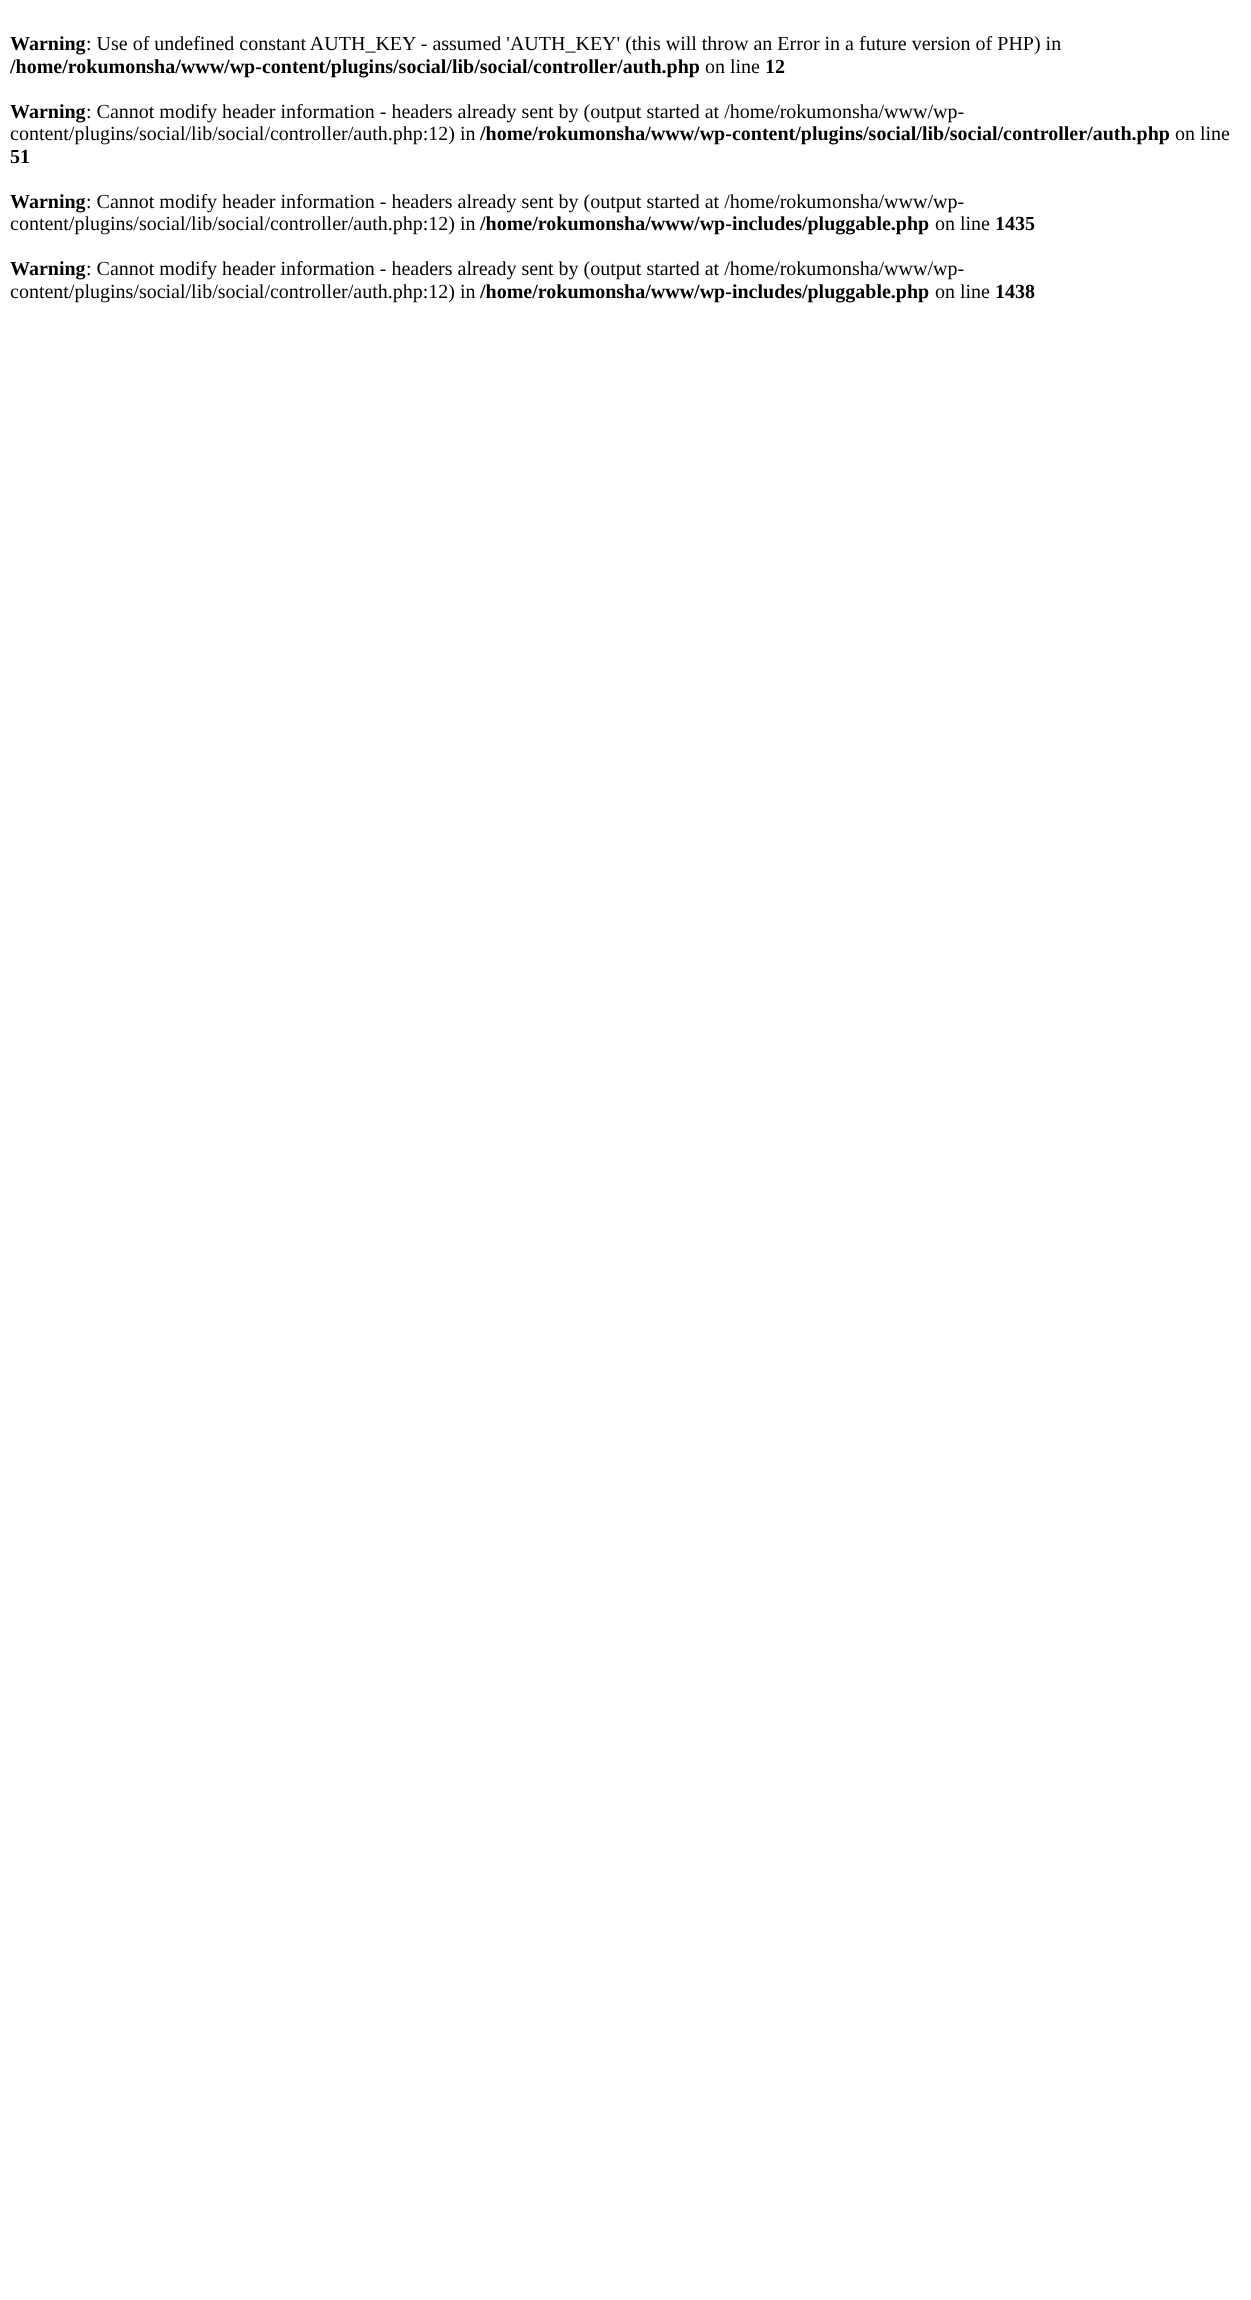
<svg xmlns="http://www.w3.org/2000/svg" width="1251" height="2300">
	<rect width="100%" height="100%" fill="#FFFFFF" />
	<text x="10" y="50" font-family="Liberation Serif" font-size="20" font-weight="700" fill="#000000">Warning</text>
	<text x="86" y="50" font-family="Liberation Serif" font-size="20" fill="#000000">: Use of undefined constant AUTH_KEY - assumed 'AUTH_KEY' (this will throw an Error in a future version of PHP) in</text>
	<text x="10" y="73" font-family="Liberation Serif" font-size="20" font-weight="700" fill="#000000">/home/rokumonsha/www/wp-content/plugins/social/lib/social/controller/auth.php</text>
	<text x="705" y="73" font-family="Liberation Serif" font-size="20" fill="#000000">on line</text>
	<g font-family="Liberation Serif" font-size="20" font-weight="700" fill="#000000">
		<text x="765" y="73">12</text>
		<text x="10" y="118">Warning</text>
	</g>
	<g font-family="Liberation Serif" font-size="20" fill="#000000">
		<text x="86" y="118">: Cannot modify header information - headers already sent by (output started at /home/rokumonsha/www/wp-</text>
		<text x="10" y="140">content/plugins/social/lib/social/controller/auth.php:12) in</text>
	</g>
	<text x="480" y="140" font-family="Liberation Serif" font-size="20" font-weight="700" fill="#000000">/home/rokumonsha/www/wp-content/plugins/social/lib/social/controller/auth.php</text>
	<text x="1175" y="140" font-family="Liberation Serif" font-size="20" fill="#000000">on line</text>
	<g font-family="Liberation Serif" font-size="20" font-weight="700" fill="#000000">
		<text x="10" y="163">51</text>
		<text x="10" y="208">Warning</text>
	</g>
	<g font-family="Liberation Serif" font-size="20" fill="#000000">
		<text x="86" y="208">: Cannot modify header information - headers already sent by (output started at /home/rokumonsha/www/wp-</text>
		<text x="10" y="230">content/plugins/social/lib/social/controller/auth.php:12) in</text>
	</g>
	<text x="480" y="230" font-family="Liberation Serif" font-size="20" font-weight="700" fill="#000000">/home/rokumonsha/www/wp-includes/pluggable.php</text>
	<text x="935" y="230" font-family="Liberation Serif" font-size="20" fill="#000000">on line</text>
	<g font-family="Liberation Serif" font-size="20" font-weight="700" fill="#000000">
		<text x="995" y="230">1435</text>
		<text x="10" y="275">Warning</text>
	</g>
	<g font-family="Liberation Serif" font-size="20" fill="#000000">
		<text x="86" y="275">: Cannot modify header information - headers already sent by (output started at /home/rokumonsha/www/wp-</text>
		<text x="10" y="298">content/plugins/social/lib/social/controller/auth.php:12) in</text>
	</g>
	<text x="480" y="298" font-family="Liberation Serif" font-size="20" font-weight="700" fill="#000000">/home/rokumonsha/www/wp-includes/pluggable.php</text>
	<text x="935" y="298" font-family="Liberation Serif" font-size="20" fill="#000000">on line</text>
	<text x="995" y="298" font-family="Liberation Serif" font-size="20" font-weight="700" fill="#000000">1438</text>
</svg>
